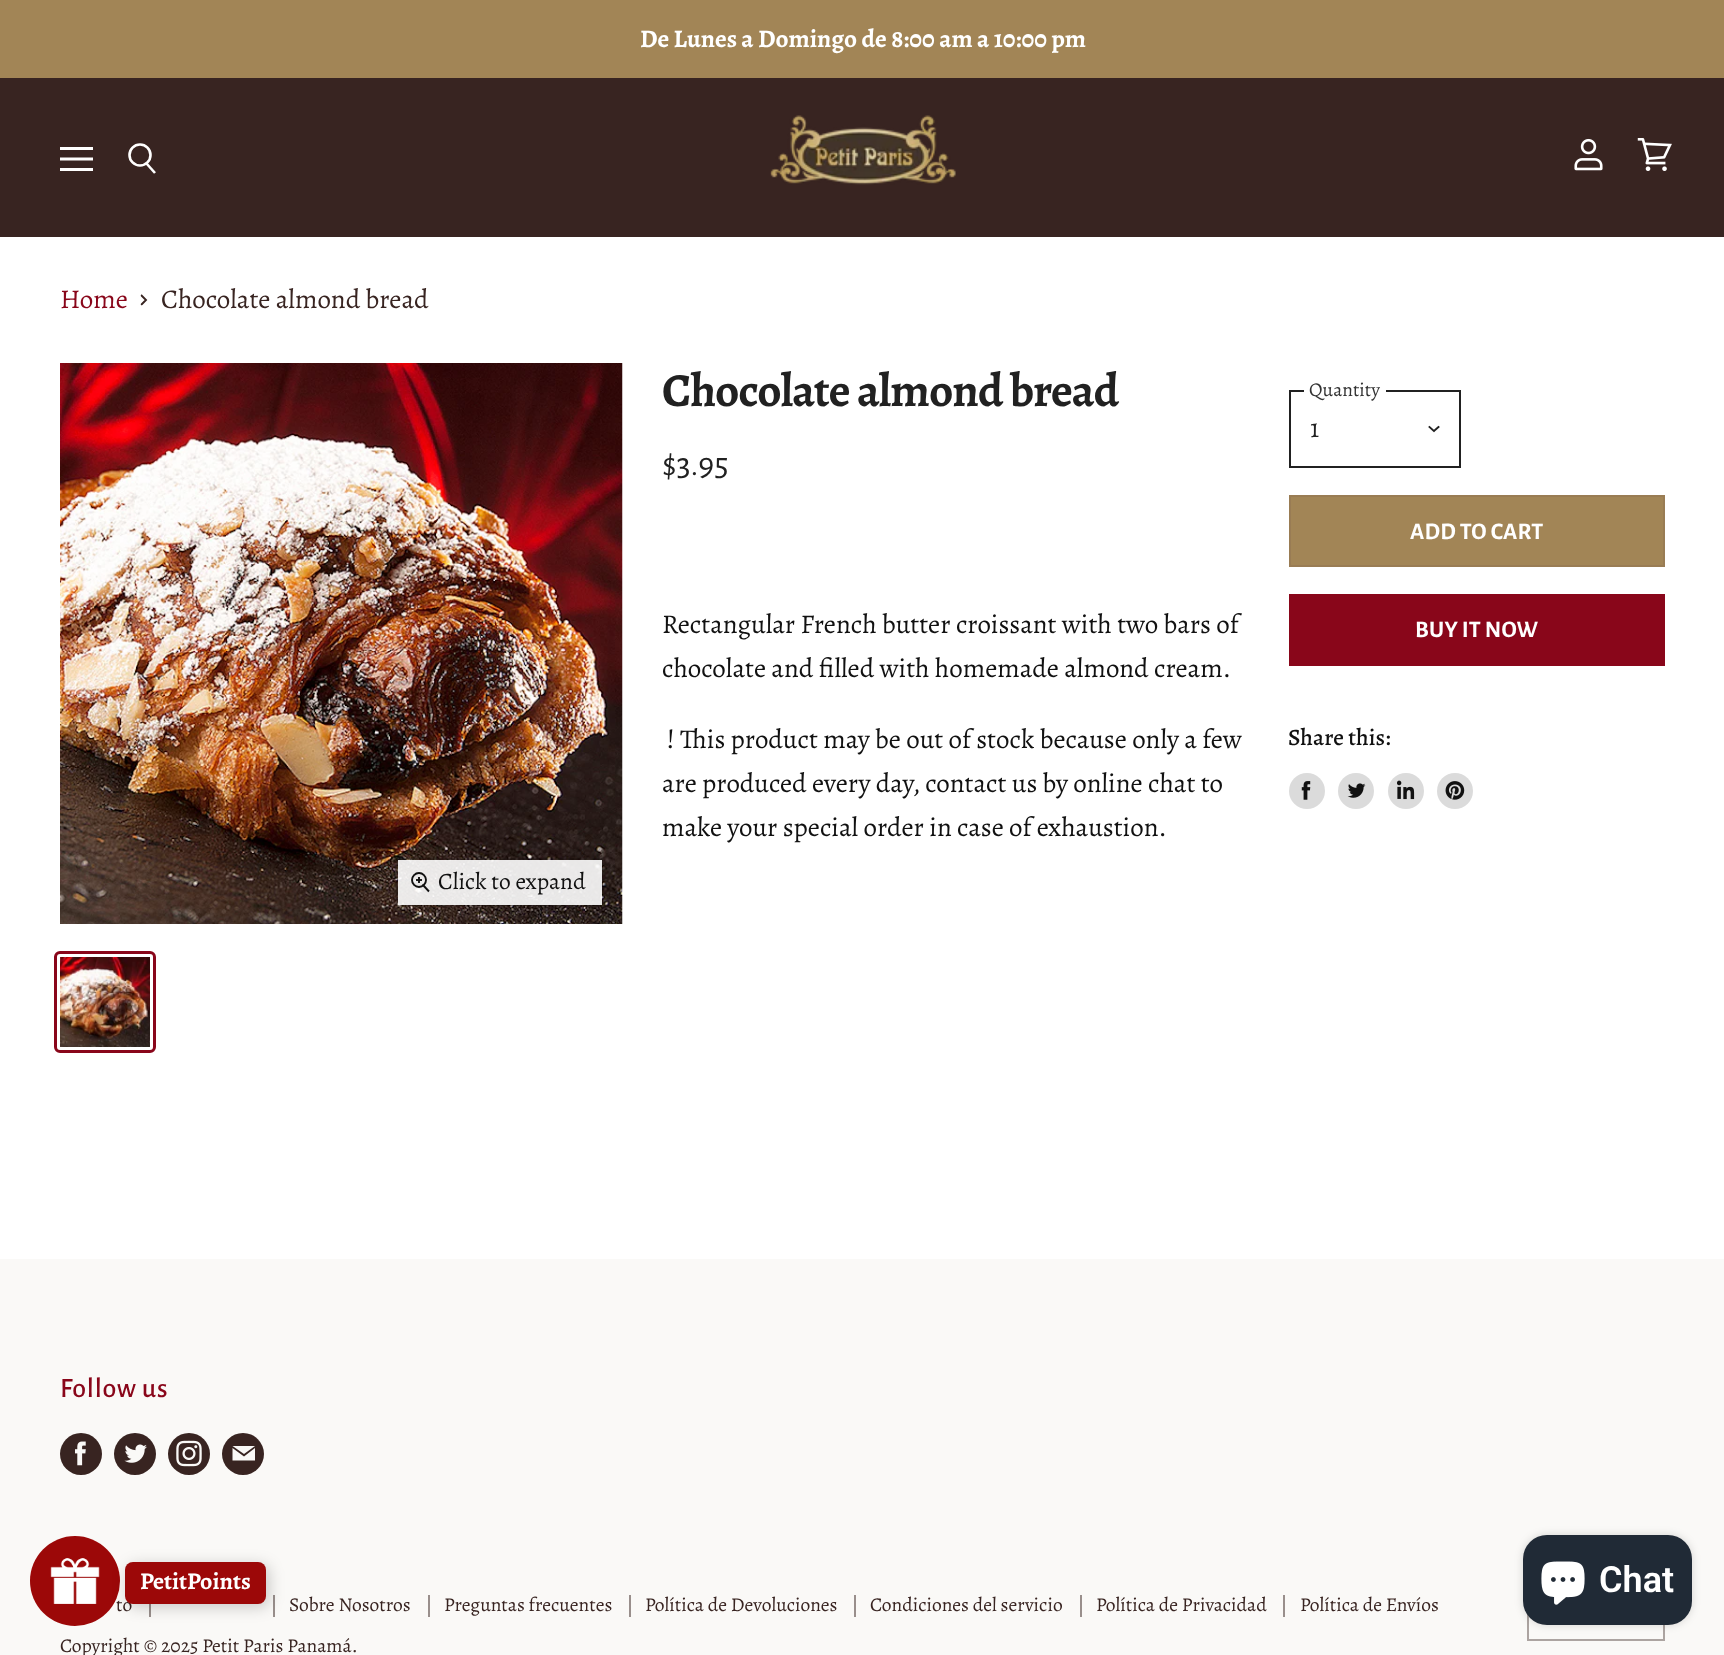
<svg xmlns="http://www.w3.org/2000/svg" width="1724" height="1655">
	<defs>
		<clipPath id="clip1"><path d="M140.5 305.5V293.5H148V305.5Z" /></clipPath>
	</defs>
	<rect width="100%" height="100%" fill="#FFFFFF" />
	<rect x="0" y="0" width="1724" height="78" fill="#A28556" />
	<text x="640" y="47" font-family="Alegreya" font-size="25.3" font-weight="700" fill="#FFFFFF">De Lunes a Domingo de 8:00 am a 10:00 pm</text>
	<rect x="0" y="78" width="1724" height="159" fill="#382421" />
	<rect x="60" y="147" width="33" height="3" fill="#FFFFFF" />
	<path d="M91.5 159H61.5" fill="none" stroke="#FFFFFF" stroke-width="3" stroke-linecap="square" stroke-linejoin="round" />
	<rect x="60" y="168" width="33" height="3" fill="#FFFFFF" />
	<path d="M155 173L146.5 163.5" fill="none" stroke="#FFFFFF" stroke-width="2.6" />
	<circle cx="140" cy="155" r="10.5" fill="none" stroke="#FFFFFF" stroke-width="2.6" />
	<image x="770" y="115" width="186" height="70" href="assets/img1.png" />
	<image x="1574" y="138" width="29" height="33" href="assets/img2.png" />
	<image x="1637" y="138" width="35" height="33" href="assets/img3.png" />
	<text x="60" y="308" font-family="Alegreya" font-size="27" fill="#89061A">Home</text>
	<g clip-path="url(#clip1)">
		<path d="M141 305L146 300L141 295" fill="none" stroke="#382421" stroke-width="1.9" />
	</g>
	<text x="161" y="308" font-family="Alegreya" font-size="27" fill="#382421">Chocolate almond bread</text>
	<text x="662" y="406" font-family="Alegreya" font-size="47.25" font-weight="700" letter-spacing="-0.95" fill="#212121">Chocolate almond bread</text>
	<text x="662" y="475" font-family="Alegreya Sans" font-size="34" fill="#212121">$3.95</text>
	<g font-family="Alegreya" font-size="27" fill="#111111">
		<text x="662" y="633">Rectangular French butter croissant with two bars of</text>
		<text x="662" y="677">chocolate and filled with homemade almond cream.</text>
		<text x="667" y="748">! This product may be out of stock because only a few</text>
		<text x="662" y="792">are produced every day, contact us by online chat to</text>
		<text x="662" y="836">make your special order in case of exhaustion.</text>
	</g>
	<rect x="1290" y="391" width="170" height="76" fill="none" stroke="#212121" stroke-width="2" />
	<rect x="1304" y="390" width="82" height="2" fill="#FFFFFF" />
	<text x="1309" y="396" font-family="Alegreya" font-size="19.5" fill="#333333">Quantity</text>
	<text x="1310" y="437" font-family="Alegreya" font-size="27" fill="#212121">1</text>
	<path d="M1434 431L1438.5 427M1434 431L1429.5 427" fill="none" stroke="#212121" stroke-width="1.9" stroke-linecap="square" />
	<rect x="1290" y="496" width="374" height="70" fill="#A28556" stroke="#997C54" stroke-width="2" />
	<text x="1410" y="539" font-family="Alegreya Sans" font-size="23.75" font-weight="700" letter-spacing="0.25" fill="#FFFFFF">ADD TO CART</text>
	<rect x="1289" y="594" width="376" height="72" fill="#89061A" />
	<text x="1415" y="637" font-family="Alegreya Sans" font-size="23.75" font-weight="700" letter-spacing="0.25" fill="#FFFFFF">BUY IT NOW</text>
	<text x="1288" y="745" font-family="Alegreya" font-size="23.5" font-weight="500" fill="#111111">Share this:</text>
	<circle cx="1307" cy="791" r="18" fill="#DBDBDB" />
	<image x="1301" y="781" width="10" height="19" href="assets/img4.png" />
	<circle cx="1356" cy="791" r="18" fill="#DBDBDB" />
	<image x="1347" y="783" width="19" height="15" href="assets/img5.png" />
	<circle cx="1406" cy="791" r="18" fill="#DBDBDB" />
	<image x="1397" y="780" width="18" height="20" href="assets/img6.png" />
	<circle cx="1455" cy="791" r="18" fill="#DBDBDB" />
	<image x="1445" y="781" width="20" height="19" href="assets/img7.png" />
	<image x="60" y="363" width="563" height="561" href="assets/img8.png" />
	<rect x="397" y="859" width="205" height="46" fill="none" stroke="#000000" stroke-opacity="0.15" stroke-width="2" />
	<rect x="398" y="860" width="204" height="45" fill="#FFFFFF" fill-opacity="0.9" />
	<path d="M422.5 884.5L429 891.5" fill="none" stroke="#111111" stroke-width="1.9" />
	<circle cx="419" cy="880" r="7" fill="none" stroke="#111111" stroke-width="1.9" />
	<rect x="418" y="877" width="2" height="6" fill="#111111" fill-opacity="0.95" />
	<rect x="416" y="879" width="6" height="2" fill="#111111" fill-opacity="0.95" />
	<text x="438" y="889" font-family="Alegreya" font-size="23.5" fill="#111111">Click to expand</text>
	<rect x="55.5" y="952.5" width="99" height="99" rx="4.5" fill="none" stroke="#89061A" stroke-width="3" />
	<image x="60" y="957" width="90" height="90" href="assets/img9.png" />
	<rect x="0" y="1259" width="1724" height="396" fill="#FAF9F7" />
	<text x="60" y="1397" font-family="Alegreya Sans" font-size="28" font-weight="500" letter-spacing="0.75" fill="#89061A">Follow us</text>
	<circle cx="81" cy="1454" r="21" fill="#382421" />
	<image x="75" y="1441" width="11" height="25" href="assets/img10.png" />
	<circle cx="135" cy="1454" r="21" fill="#382421" />
	<image x="124" y="1444" width="23" height="19" href="assets/img11.png" />
	<circle cx="189" cy="1454" r="21" fill="#382421" />
	<image x="176" y="1440" width="26" height="27" href="assets/img12.png" />
	<circle cx="243" cy="1454" r="21" fill="#382421" />
	<path d="M255 1446H232.5L244 1454ZM244 1456.5L232.5 1448V1460.5H255V1448Z" fill="#FAF9F7" fill-rule="evenodd" />
	<rect x="149" y="1604" width="2" height="13" fill="#998F8C" />
	<text x="116" y="1611" font-family="Alegreya" font-size="19.5" fill="#382421">to</text>
	<rect x="273" y="1595" width="2" height="22" fill="#998F8C" />
	<rect x="428" y="1595" width="2" height="22" fill="#998F8C" />
	<text x="289" y="1611" font-family="Alegreya" font-size="19.5" fill="#382421">Sobre Nosotros</text>
	<rect x="629" y="1595" width="2" height="22" fill="#998F8C" />
	<text x="444" y="1611" font-family="Alegreya" font-size="19.5" fill="#382421">Preguntas frecuentes</text>
	<rect x="854" y="1595" width="2" height="22" fill="#998F8C" />
	<text x="645" y="1611" font-family="Alegreya" font-size="19.5" fill="#382421">Política de Devoluciones</text>
	<rect x="1080" y="1595" width="2" height="22" fill="#998F8C" />
	<text x="870" y="1611" font-family="Alegreya" font-size="19.5" fill="#382421">Condiciones del servicio</text>
	<rect x="1283" y="1595" width="2" height="22" fill="#998F8C" />
	<g font-family="Alegreya" font-size="19.5" fill="#382421">
		<text x="1096" y="1611">Política de Privacidad</text>
		<text x="1300" y="1611">Política de Envíos</text>
		<text x="60" y="1652">Copyright © 2025 Petit Paris Panamá.</text>
	</g>
	<rect x="1528" y="1596" width="136" height="44" fill="none" stroke="#ACA4A1" stroke-width="2" />
	<circle cx="75" cy="1581" r="45" fill="#9C0808" />
	<image x="50" y="1558" width="50" height="46" href="assets/img13.png" />
	<rect x="128" y="1565" width="141" height="42" rx="8" fill="#000000" fill-opacity="0.2" filter="blur(7.5px)" />
	<rect x="125" y="1562" width="141" height="42" rx="8" fill="#9C0808" />
	<text x="140" y="1589" font-family="Alegreya" font-size="24" font-weight="700" fill="#FFFFFF">PetitPoints</text>
	<rect x="1523" y="1535" width="169" height="90" rx="24" fill="#000000" fill-opacity="0.15" filter="blur(4px)" />
	<rect x="1523" y="1535" width="169" height="90" rx="24" fill="#202A36" />
	<image x="1541" y="1561" width="44" height="44" href="assets/img14.png" />
	<text x="1599" y="1592" font-family="Roboto" font-size="36" font-weight="600" fill="#FFFFFF">Chat</text>
</svg>
